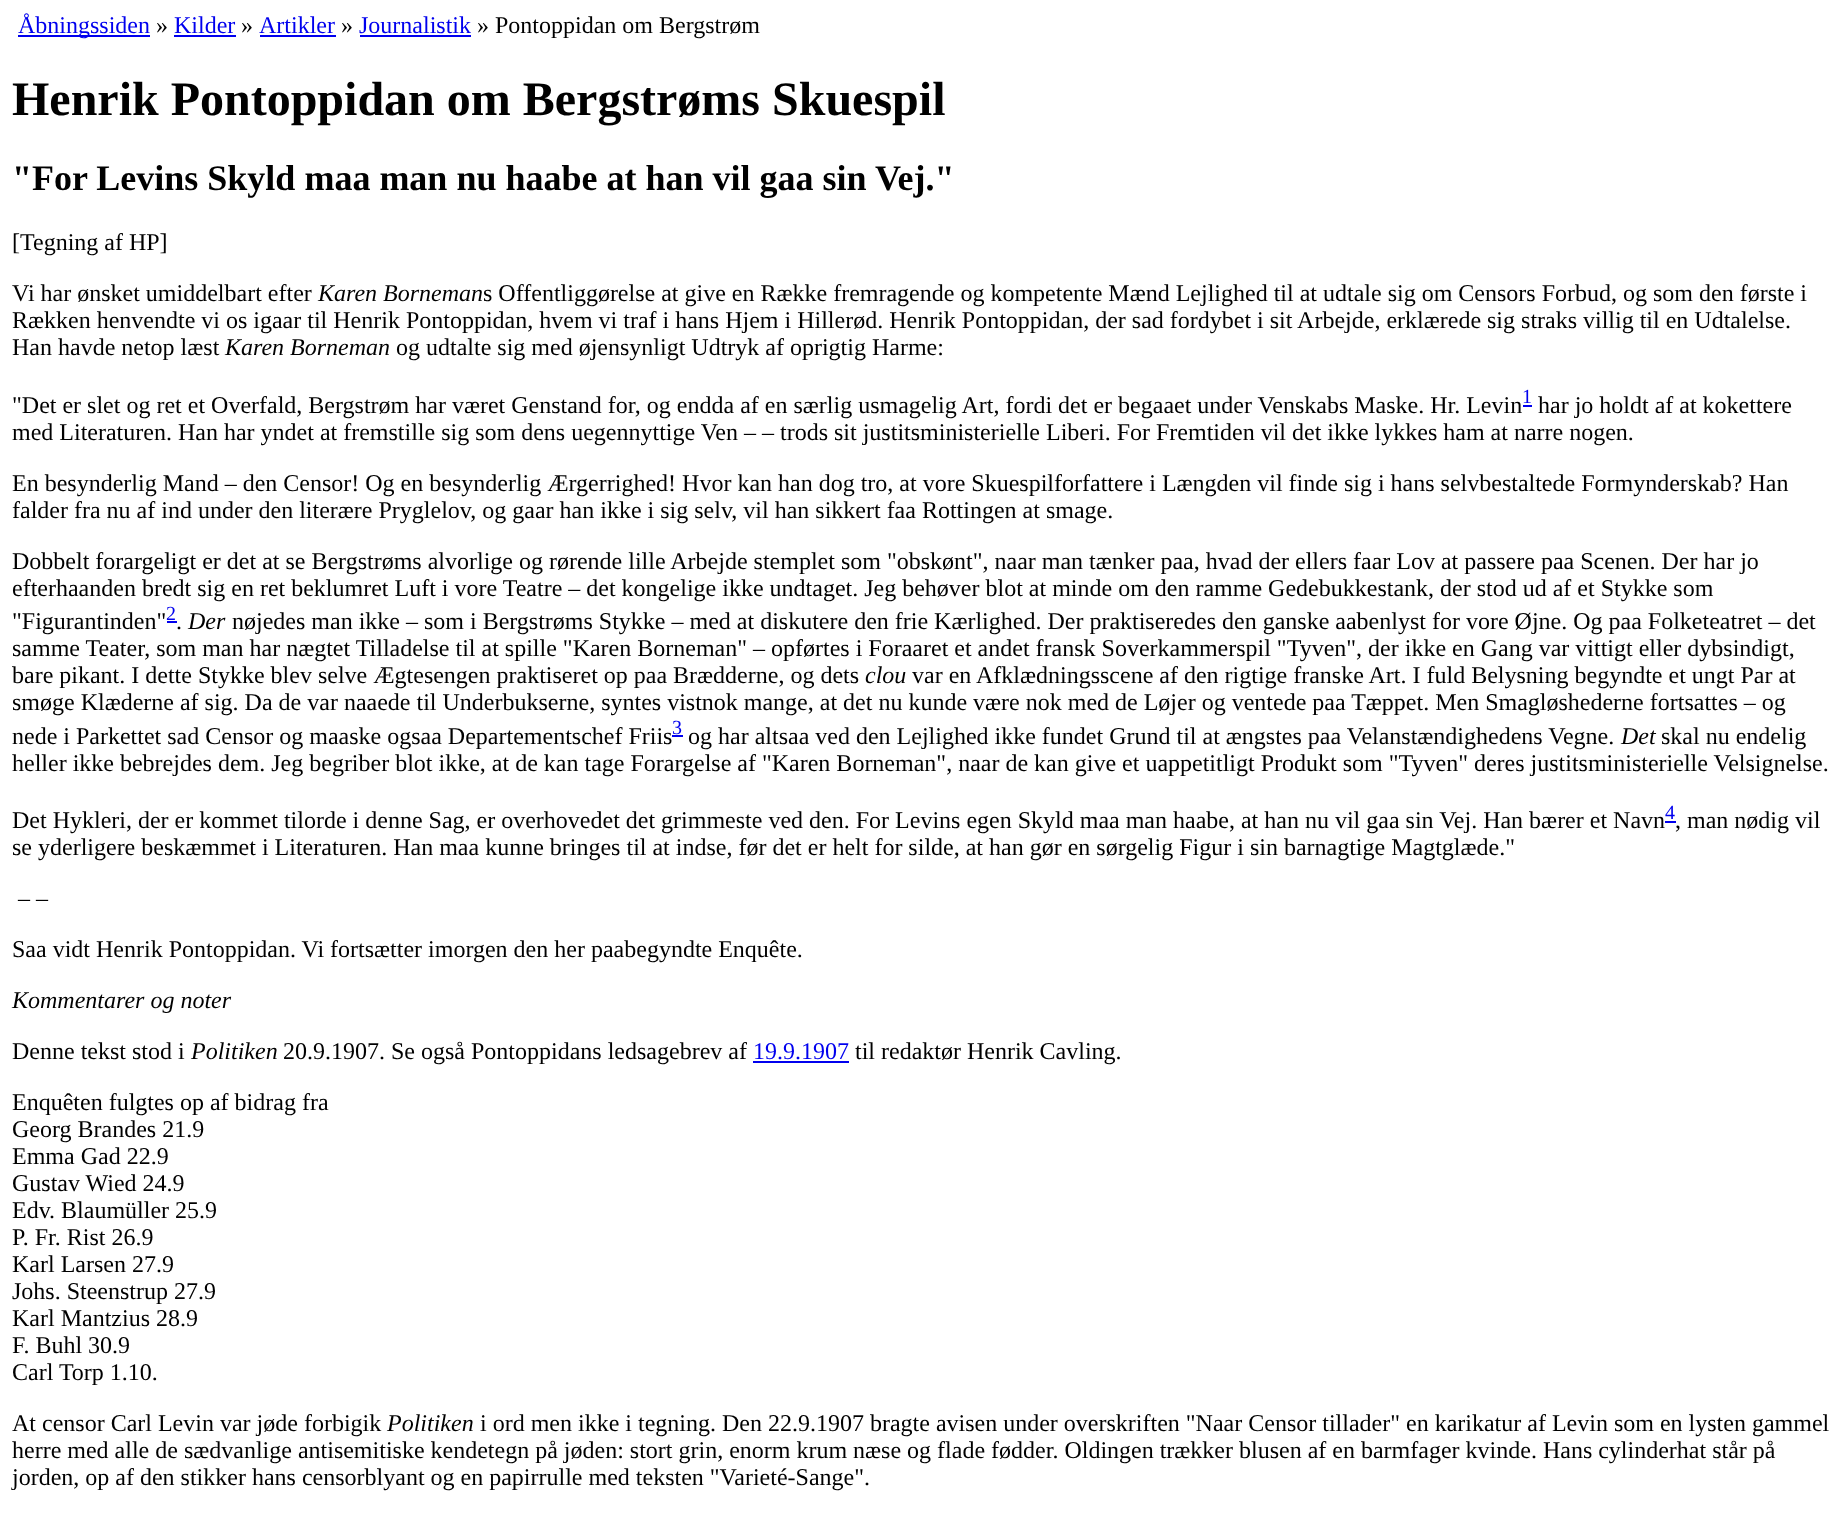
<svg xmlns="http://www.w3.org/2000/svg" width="1841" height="1524">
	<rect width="100%" height="100%" fill="#FFFFFF" />
	<rect x="18" y="35" width="132" height="2" fill="#0000EE" />
	<text x="18" y="33" font-family="Liberation Serif" font-size="24" fill="#0000EE">Åbningssiden</text>
	<text x="156" y="33" font-family="Liberation Serif" font-size="24" fill="#000000">»</text>
	<text x="174" y="33" font-family="Liberation Serif" font-size="24" fill="#0000EE">Kilder</text>
	<rect x="174" y="35" width="62" height="2" fill="#0000EE" />
	<text x="241" y="33" font-family="Liberation Serif" font-size="24" fill="#000000">»</text>
	<text x="259" y="33" font-family="Liberation Serif" font-size="24" fill="#0000EE">Artikler</text>
	<rect x="260" y="35" width="76" height="2" fill="#0000EE" />
	<text x="341" y="33" font-family="Liberation Serif" font-size="24" fill="#000000">»</text>
	<text x="359" y="33" font-family="Liberation Serif" font-size="24" fill="#0000EE">Journalistik</text>
	<rect x="360" y="35" width="111" height="2" fill="#0000EE" />
	<text x="477" y="33" font-family="Liberation Serif" font-size="24" fill="#000000">» Pontoppidan om Bergstrøm</text>
	<text x="12" y="115" font-family="Liberation Serif" font-size="48" font-weight="700" fill="#000000">Henrik Pontoppidan om Bergstrøms Skuespil</text>
	<text x="12" y="190" font-family="Liberation Serif" font-size="36" font-weight="700" fill="#000000">"For Levins Skyld maa man nu haabe at han vil gaa sin Vej."</text>
	<g font-family="Liberation Serif" font-size="24" fill="#000000">
		<text x="12" y="250">[Tegning af HP]</text>
		<text x="12" y="301">Vi har ønsket umiddelbart efter</text>
	</g>
	<text x="318" y="301" font-family="Liberation Serif" font-size="24" font-style="italic" fill="#000000">Karen Borneman</text>
	<g font-family="Liberation Serif" font-size="24" fill="#000000">
		<text x="483" y="301">s Offentliggørelse at give en Række fremragende og kompetente Mænd Lejlighed til at udtale sig om Censors Forbud, og som den første i</text>
		<text x="12" y="328">Rækken henvendte vi os igaar til Henrik Pontoppidan, hvem vi traf i hans Hjem i Hillerød. Henrik Pontoppidan, der sad fordybet i sit Arbejde, erklærede sig straks villig til en Udtalelse.</text>
		<text x="12" y="355">Han havde netop læst</text>
	</g>
	<text x="225" y="355" font-family="Liberation Serif" font-size="24" font-style="italic" fill="#000000">Karen Borneman</text>
	<g font-family="Liberation Serif" font-size="24" fill="#000000">
		<text x="396" y="355">og udtalte sig med øjensynligt Udtryk af oprigtig Harme:</text>
		<text x="12" y="413">"Det er slet og ret et Overfald, Bergstrøm har været Genstand for, og endda af en særlig usmagelig Art, fordi det er begaaet under Venskabs Maske. Hr. Levin</text>
	</g>
	<text x="1522" y="403" font-family="Liberation Serif" font-size="20" fill="#0000EE">1</text>
	<rect x="1523" y="405" width="9" height="2" fill="#0000EE" />
	<g font-family="Liberation Serif" font-size="24" fill="#000000">
		<text x="1538" y="413">har jo holdt af at kokettere</text>
		<text x="12" y="440">med Literaturen. Han har yndet at fremstille sig som dens uegennyttige Ven – – trods sit justitsministerielle Liberi. For Fremtiden vil det ikke lykkes ham at narre nogen.</text>
		<text x="12" y="491">En besynderlig Mand – den Censor! Og en besynderlig Ærgerrighed! Hvor kan han dog tro, at vore Skuespilforfattere i Længden vil finde sig i hans selvbestaltede Formynderskab? Han</text>
		<text x="12" y="518">falder fra nu af ind under den literære Pryglelov, og gaar han ikke i sig selv, vil han sikkert faa Rottingen at smage.</text>
		<text x="12" y="569">Dobbelt forargeligt er det at se Bergstrøms alvorlige og rørende lille Arbejde stemplet som "obskønt", naar man tænker paa, hvad der ellers faar Lov at passere paa Scenen. Der har jo</text>
		<text x="12" y="596">efterhaanden bredt sig en ret beklumret Luft i vore Teatre – det kongelige ikke undtaget. Jeg behøver blot at minde om den ramme Gedebukkestank, der stod ud af et Stykke som</text>
		<text x="12" y="629">"Figurantinden"</text>
	</g>
	<text x="166" y="620" font-family="Liberation Serif" font-size="20" fill="#0000EE">2</text>
	<rect x="167" y="621" width="10" height="2" fill="#0000EE" />
	<text x="176" y="629" font-family="Liberation Serif" font-size="24" fill="#000000">.</text>
	<text x="188" y="629" font-family="Liberation Serif" font-size="24" font-style="italic" fill="#000000">Der</text>
	<g font-family="Liberation Serif" font-size="24" fill="#000000">
		<text x="232" y="629">nøjedes man ikke – som i Bergstrøms Stykke – med at diskutere den frie Kærlighed. Der praktiseredes den ganske aabenlyst for vore Øjne. Og paa Folketeatret – det</text>
		<text x="12" y="656">samme Teater, som man har nægtet Tilladelse til at spille "Karen Borneman" – opførtes i Foraaret et andet fransk Soverkammerspil "Tyven", der ikke en Gang var vittigt eller dybsindigt,</text>
		<text x="12" y="683">bare pikant. I dette Stykke blev selve Ægtesengen praktiseret op paa Brædderne, og dets</text>
	</g>
	<text x="865" y="683" font-family="Liberation Serif" font-size="24" font-style="italic" fill="#000000">clou</text>
	<g font-family="Liberation Serif" font-size="24" fill="#000000">
		<text x="912" y="683">var en Afklædningsscene af den rigtige franske Art. I fuld Belysning begyndte et ungt Par at</text>
		<text x="12" y="710">smøge Klæderne af sig. Da de var naaede til Underbukserne, syntes vistnok mange, at det nu kunde være nok med de Løjer og ventede paa Tæppet. Men Smagløshederne fortsattes – og</text>
		<text x="12" y="744">nede i Parkettet sad Censor og maaske ogsaa Departementschef Friis</text>
	</g>
	<text x="672" y="734" font-family="Liberation Serif" font-size="20" fill="#0000EE">3</text>
	<rect x="672" y="735" width="11" height="2" fill="#0000EE" />
	<text x="688" y="744" font-family="Liberation Serif" font-size="24" fill="#000000">og har altsaa ved den Lejlighed ikke fundet Grund til at ængstes paa Velanstændighedens Vegne.</text>
	<text x="1621" y="744" font-family="Liberation Serif" font-size="24" font-style="italic" fill="#000000">Det</text>
	<g font-family="Liberation Serif" font-size="24" fill="#000000">
		<text x="1661" y="744">skal nu endelig</text>
		<text x="12" y="771">heller ikke bebrejdes dem. Jeg begriber blot ikke, at de kan tage Forargelse af "Karen Borneman", naar de kan give et uappetitligt Produkt som "Tyven" deres justitsministerielle Velsignelse.</text>
		<text x="12" y="828">Det Hykleri, der er kommet tilorde i denne Sag, er overhovedet det grimmeste ved den. For Levins egen Skyld maa man haabe, at han nu vil gaa sin Vej. Han bærer et Navn</text>
	</g>
	<text x="1665" y="819" font-family="Liberation Serif" font-size="20" fill="#0000EE">4</text>
	<rect x="1665" y="821" width="11" height="2" fill="#0000EE" />
	<g font-family="Liberation Serif" font-size="24" fill="#000000">
		<text x="1675" y="828">, man nødig vil</text>
		<text x="12" y="855">se yderligere beskæmmet i Literaturen. Han maa kunne bringes til at indse, før det er helt for silde, at han gør en sørgelig Figur i sin barnagtige Magtglæde."</text>
		<text x="18" y="906">– –</text>
		<text x="12" y="957">Saa vidt Henrik Pontoppidan. Vi fortsætter imorgen den her paabegyndte Enquête.</text>
	</g>
	<text x="12" y="1008" font-family="Liberation Serif" font-size="24" font-style="italic" fill="#000000">Kommentarer og noter</text>
	<text x="12" y="1059" font-family="Liberation Serif" font-size="24" fill="#000000">Denne tekst stod i</text>
	<text x="191" y="1059" font-family="Liberation Serif" font-size="24" font-style="italic" fill="#000000">Politiken</text>
	<text x="283" y="1059" font-family="Liberation Serif" font-size="24" fill="#000000">20.9.1907. Se også Pontoppidans ledsagebrev af</text>
	<text x="753" y="1059" font-family="Liberation Serif" font-size="24" fill="#0000EE">19.9.1907</text>
	<rect x="753" y="1061" width="96" height="2" fill="#0000EE" />
	<g font-family="Liberation Serif" font-size="24" fill="#000000">
		<text x="855" y="1059">til redaktør Henrik Cavling.</text>
		<text x="12" y="1110">Enquêten fulgtes op af bidrag fra</text>
		<text x="12" y="1137">Georg Brandes 21.9</text>
		<text x="12" y="1164">Emma Gad 22.9</text>
		<text x="12" y="1191">Gustav Wied 24.9</text>
		<text x="12" y="1218">Edv. Blaumüller 25.9</text>
		<text x="12" y="1245">P. Fr. Rist 26.9</text>
		<text x="12" y="1272">Karl Larsen 27.9</text>
		<text x="12" y="1299">Johs. Steenstrup 27.9</text>
		<text x="12" y="1326">Karl Mantzius 28.9</text>
		<text x="12" y="1353">F. Buhl 30.9</text>
		<text x="12" y="1380">Carl Torp 1.10.</text>
		<text x="12" y="1431">At censor Carl Levin var jøde forbigik</text>
	</g>
	<text x="387" y="1431" font-family="Liberation Serif" font-size="24" font-style="italic" fill="#000000">Politiken</text>
	<g font-family="Liberation Serif" font-size="24" fill="#000000">
		<text x="480" y="1431">i ord men ikke i tegning. Den 22.9.1907 bragte avisen under overskriften "Naar Censor tillader" en karikatur af Levin som en lysten gammel</text>
		<text x="12" y="1458">herre med alle de sædvanlige antisemitiske kendetegn på jøden: stort grin, enorm krum næse og flade fødder. Oldingen trækker blusen af en barmfager kvinde. Hans cylinderhat står på</text>
		<text x="12" y="1485">jorden, op af den stikker hans censorblyant og en papirrulle med teksten "Varieté-Sange".</text>
	</g>
</svg>
